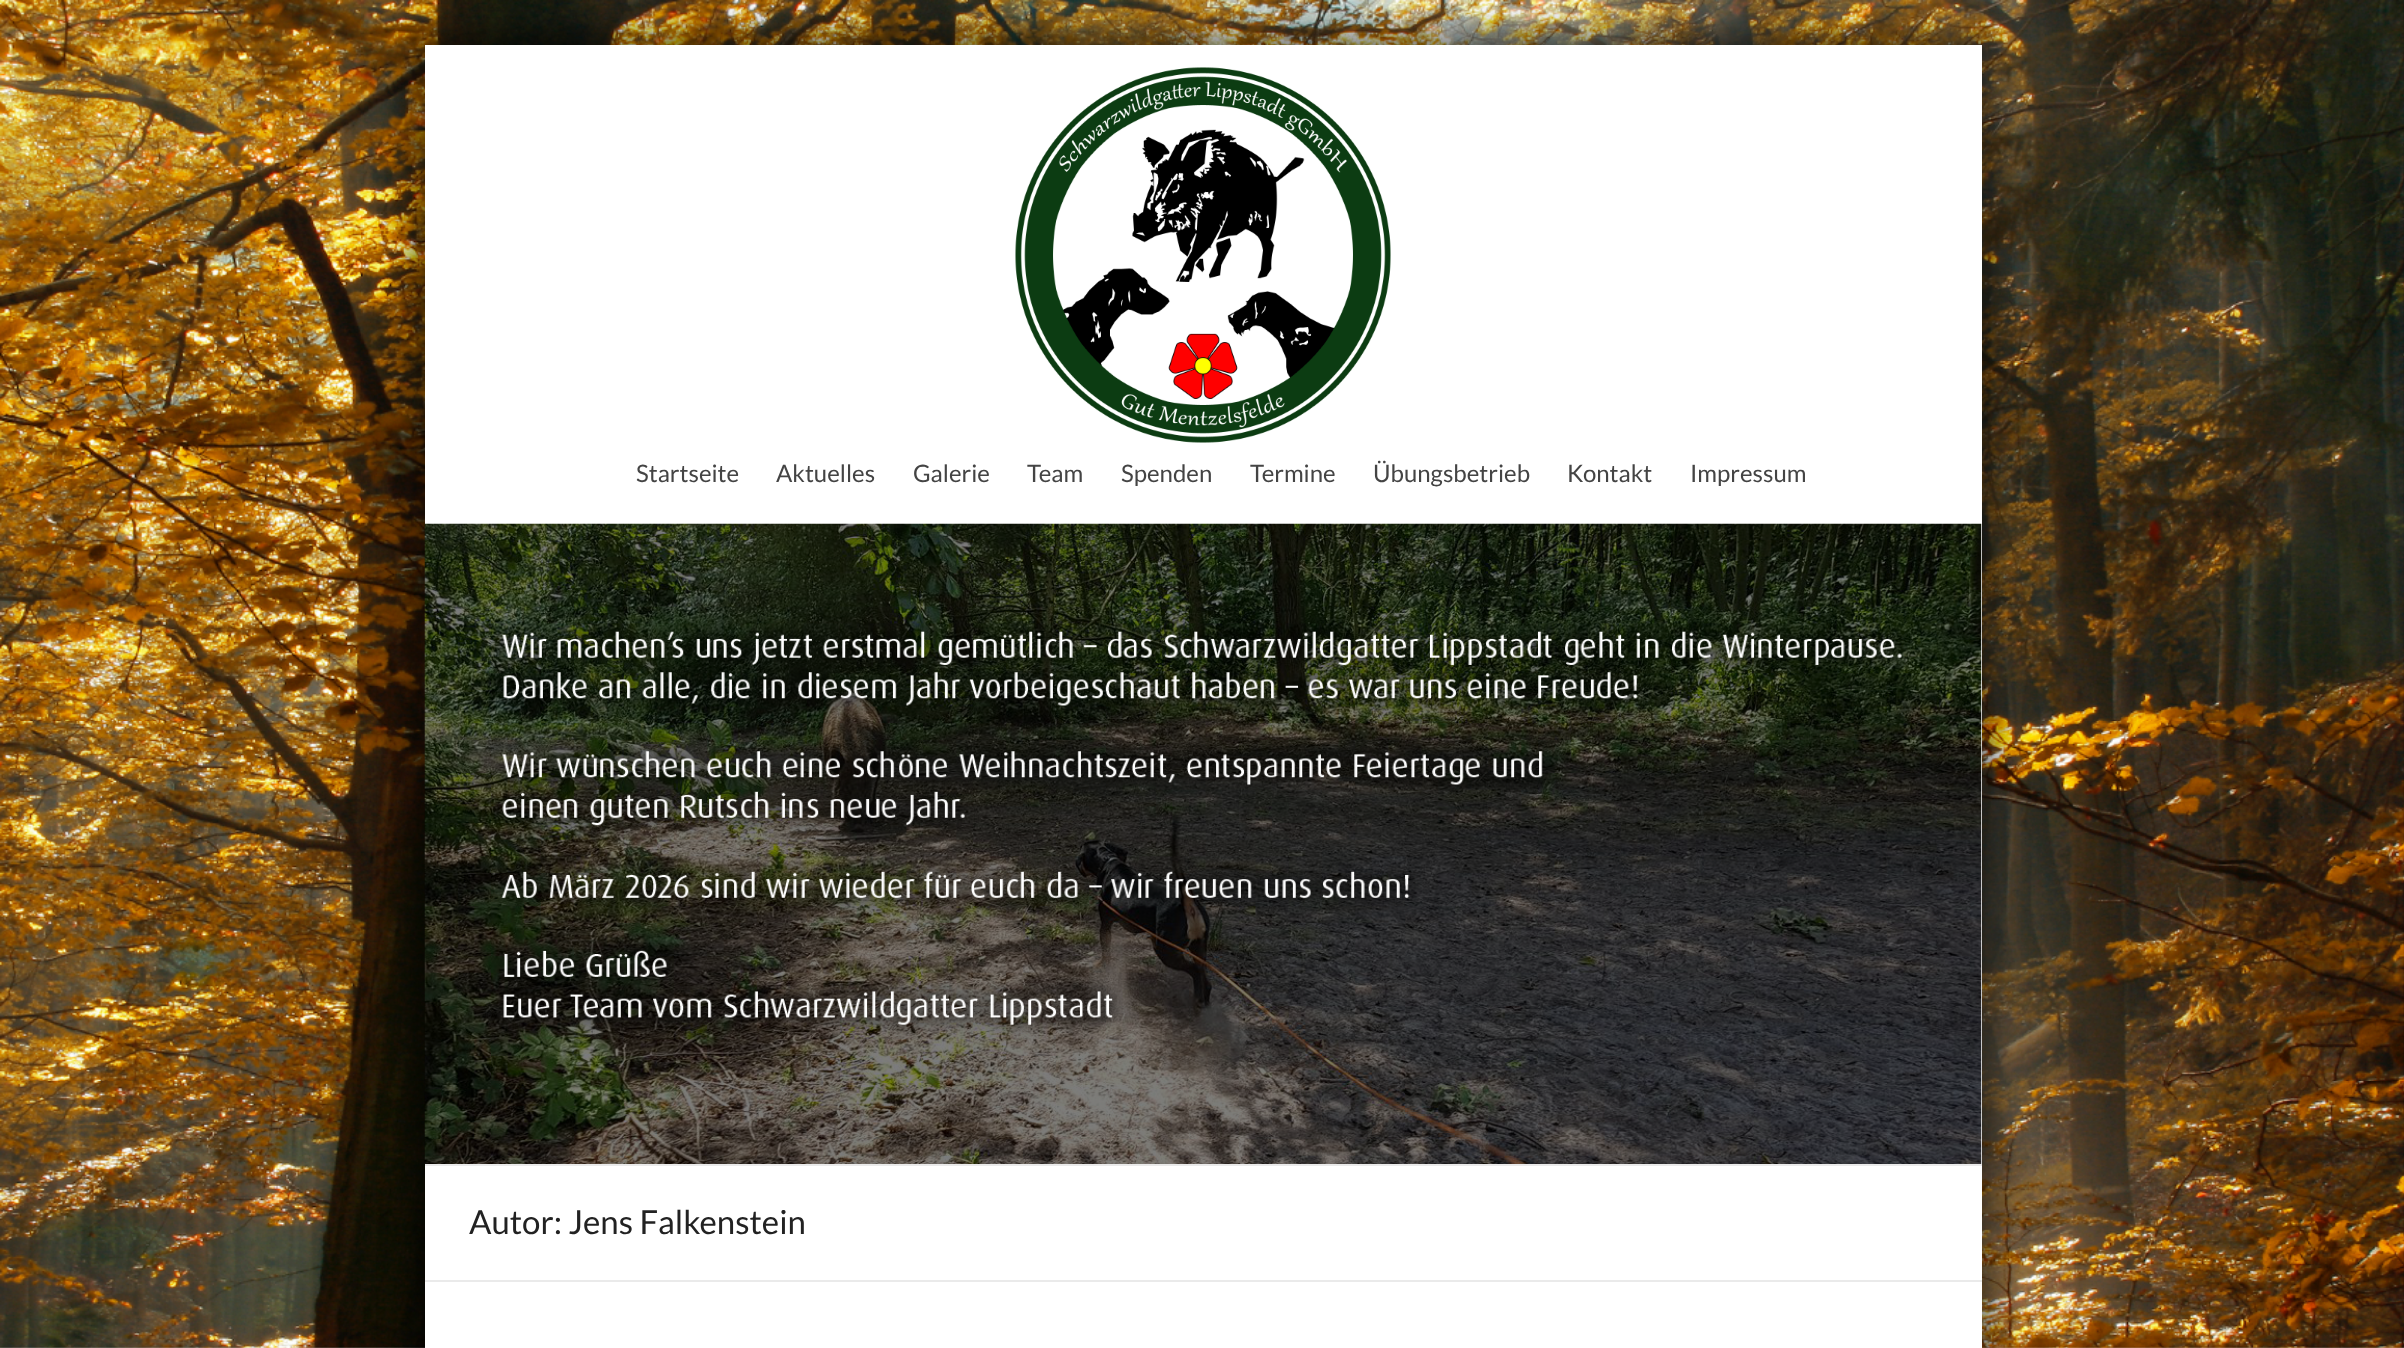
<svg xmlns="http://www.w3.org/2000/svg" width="2404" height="1348">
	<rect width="100%" height="100%" fill="#FFFFFF" />
	<image x="0" y="0" width="2404" height="1348" href="assets/img1.png" />
	<rect x="410" y="30" width="1587" height="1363" fill="#000000" fill-opacity="0.5" filter="blur(15px)" />
	<rect x="425" y="45" width="1557" height="1303" fill="#FFFFFF" />
	<image x="1015" y="67" width="376" height="376" href="assets/img2.png" />
	<g font-family="Lato" font-size="24" fill="#444444">
		<text x="636" y="482">Startseite</text>
		<text x="776" y="482">Aktuelles</text>
		<text x="913" y="482">Galerie</text>
		<text x="1027" y="482">Team</text>
		<text x="1121" y="482">Spenden</text>
		<text x="1250" y="482">Termine</text>
		<text x="1373" y="482">Übungsbetrieb</text>
		<text x="1567" y="482">Kontakt</text>
		<text x="1690" y="482">Impressum</text>
	</g>
	<image x="424" y="523" width="1558" height="641" href="assets/img3.png" />
	<rect x="425" y="1164" width="1557" height="2" fill="#EAEAEA" />
	<rect x="425" y="1280" width="1557" height="2" fill="#EAEAEA" />
	<text x="469" y="1234" font-family="Lato" font-size="33" fill="#222222">Autor: Jens Falkenstein</text>
</svg>
